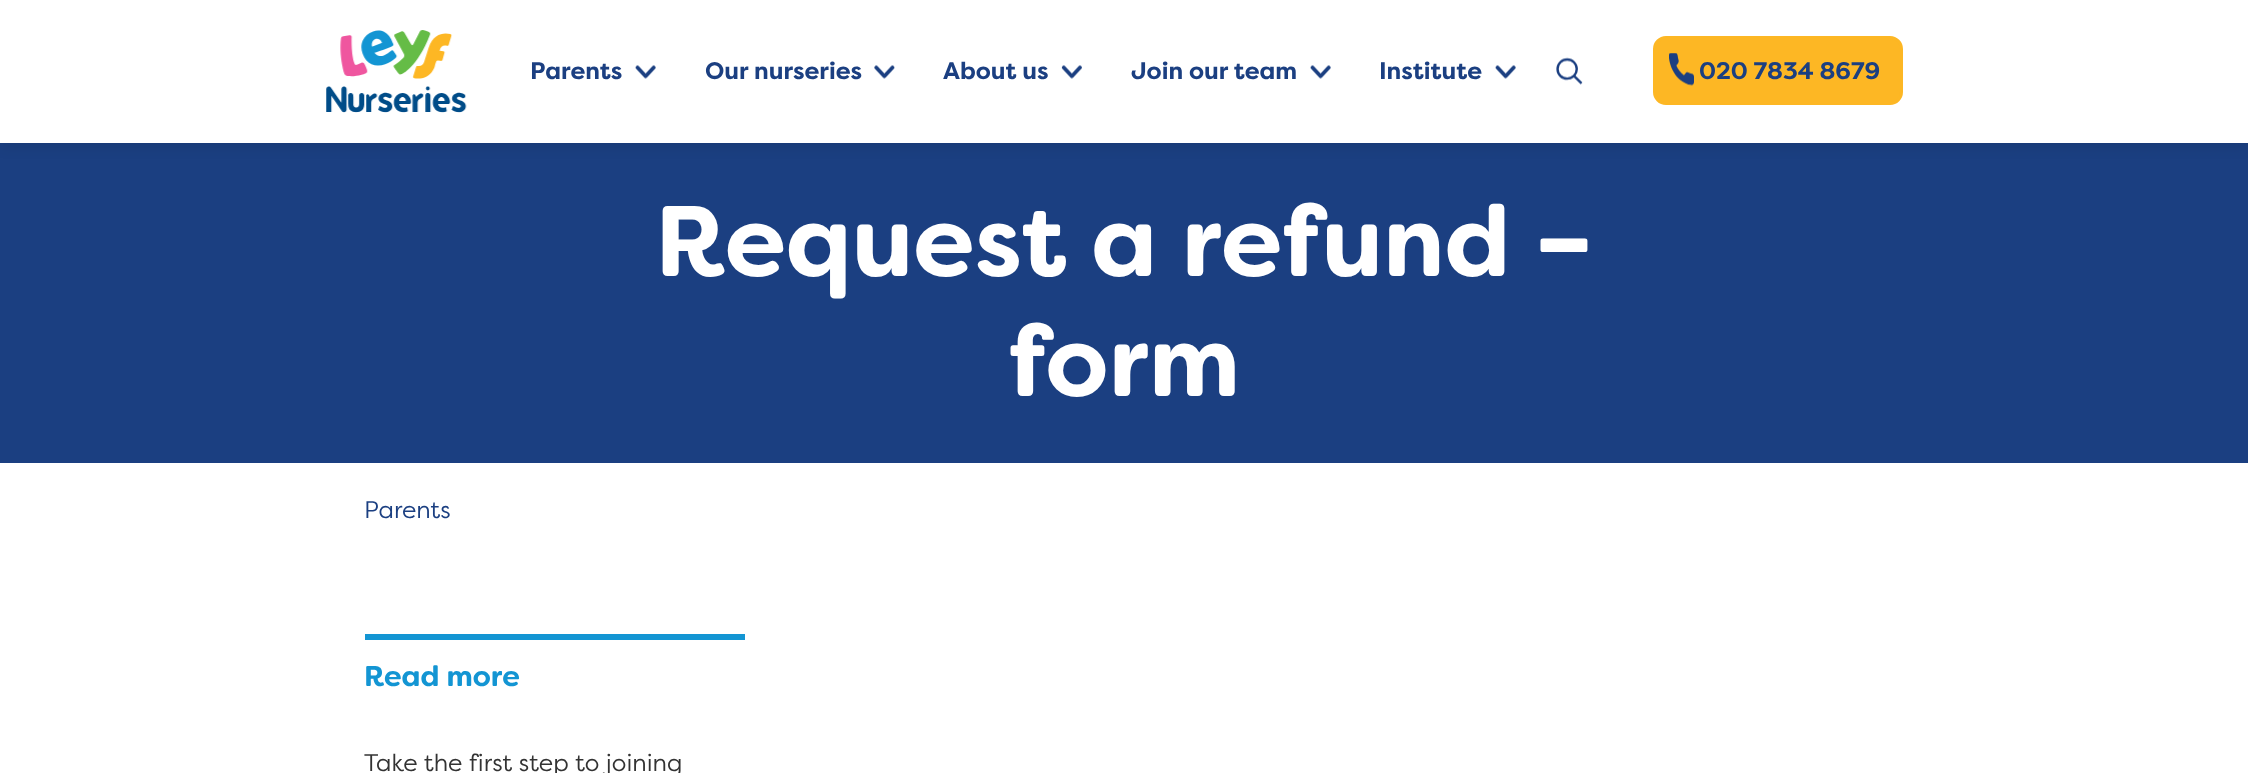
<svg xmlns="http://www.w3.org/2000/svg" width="2248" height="773">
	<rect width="100%" height="100%" fill="#FFFFFF" />
	<rect x="0" y="143" width="2248" height="320" fill="#1B3F81" />
	<rect x="0" y="3" width="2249" height="142" fill="#000000" fill-opacity="0.1" filter="blur(7.5px)" />
	<rect x="0" y="0" width="2248" height="143" fill="#FFFFFF" />
	<image x="326" y="30" width="141" height="83" href="assets/img1.png" />
	<text x="530" y="79" font-family="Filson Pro" font-size="24" font-weight="700" fill="#1B3F81">Parents</text>
	<image x="635" y="65" width="21" height="14" href="assets/img2.png" />
	<text x="705" y="79" font-family="Filson Pro" font-size="24" font-weight="700" fill="#1B3F81">Our nurseries</text>
	<image x="874" y="65" width="21" height="14" href="assets/img3.png" />
	<text x="943" y="79" font-family="Filson Pro" font-size="24" font-weight="700" fill="#1B3F81">About us</text>
	<image x="1061" y="65" width="21" height="14" href="assets/img4.png" />
	<text x="1131" y="79" font-family="Filson Pro" font-size="24" font-weight="700" fill="#1B3F81">Join our team</text>
	<image x="1310" y="65" width="21" height="14" href="assets/img5.png" />
	<text x="1379" y="79" font-family="Filson Pro" font-size="24" font-weight="700" fill="#1B3F81">Institute</text>
	<image x="1495" y="65" width="21" height="14" href="assets/img5.png" />
	<image x="1556" y="57" width="27" height="28" href="assets/img6.png" />
	<rect x="1654.5" y="37.5" width="247" height="66" rx="11.5" fill="#FDB724" stroke="#FDB724" stroke-width="3" />
	<image x="1669" y="53" width="25" height="33" href="assets/img7.png" />
	<text x="1699" y="79" font-family="Filson Pro" font-size="24" font-weight="700" fill="#1B3F81">020 7834 8679</text>
	<g font-family="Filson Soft" font-size="100" font-weight="700" fill="#FFFFFF">
		<text x="655" y="276">Request a refund –</text>
		<text x="1008" y="396">form</text>
	</g>
	<text x="364" y="518" font-family="Filson Pro" font-size="24" fill="#1B3F81">Parents</text>
	<rect x="365" y="634" width="380" height="6" fill="#1395D3" />
	<text x="364" y="686" font-family="Filson Soft" font-size="28.75" font-weight="700" fill="#1395D3">Read more</text>
	<text x="364" y="771" font-family="Filson Pro" font-size="24" fill="#333333">Take the first step to joining</text>
</svg>
